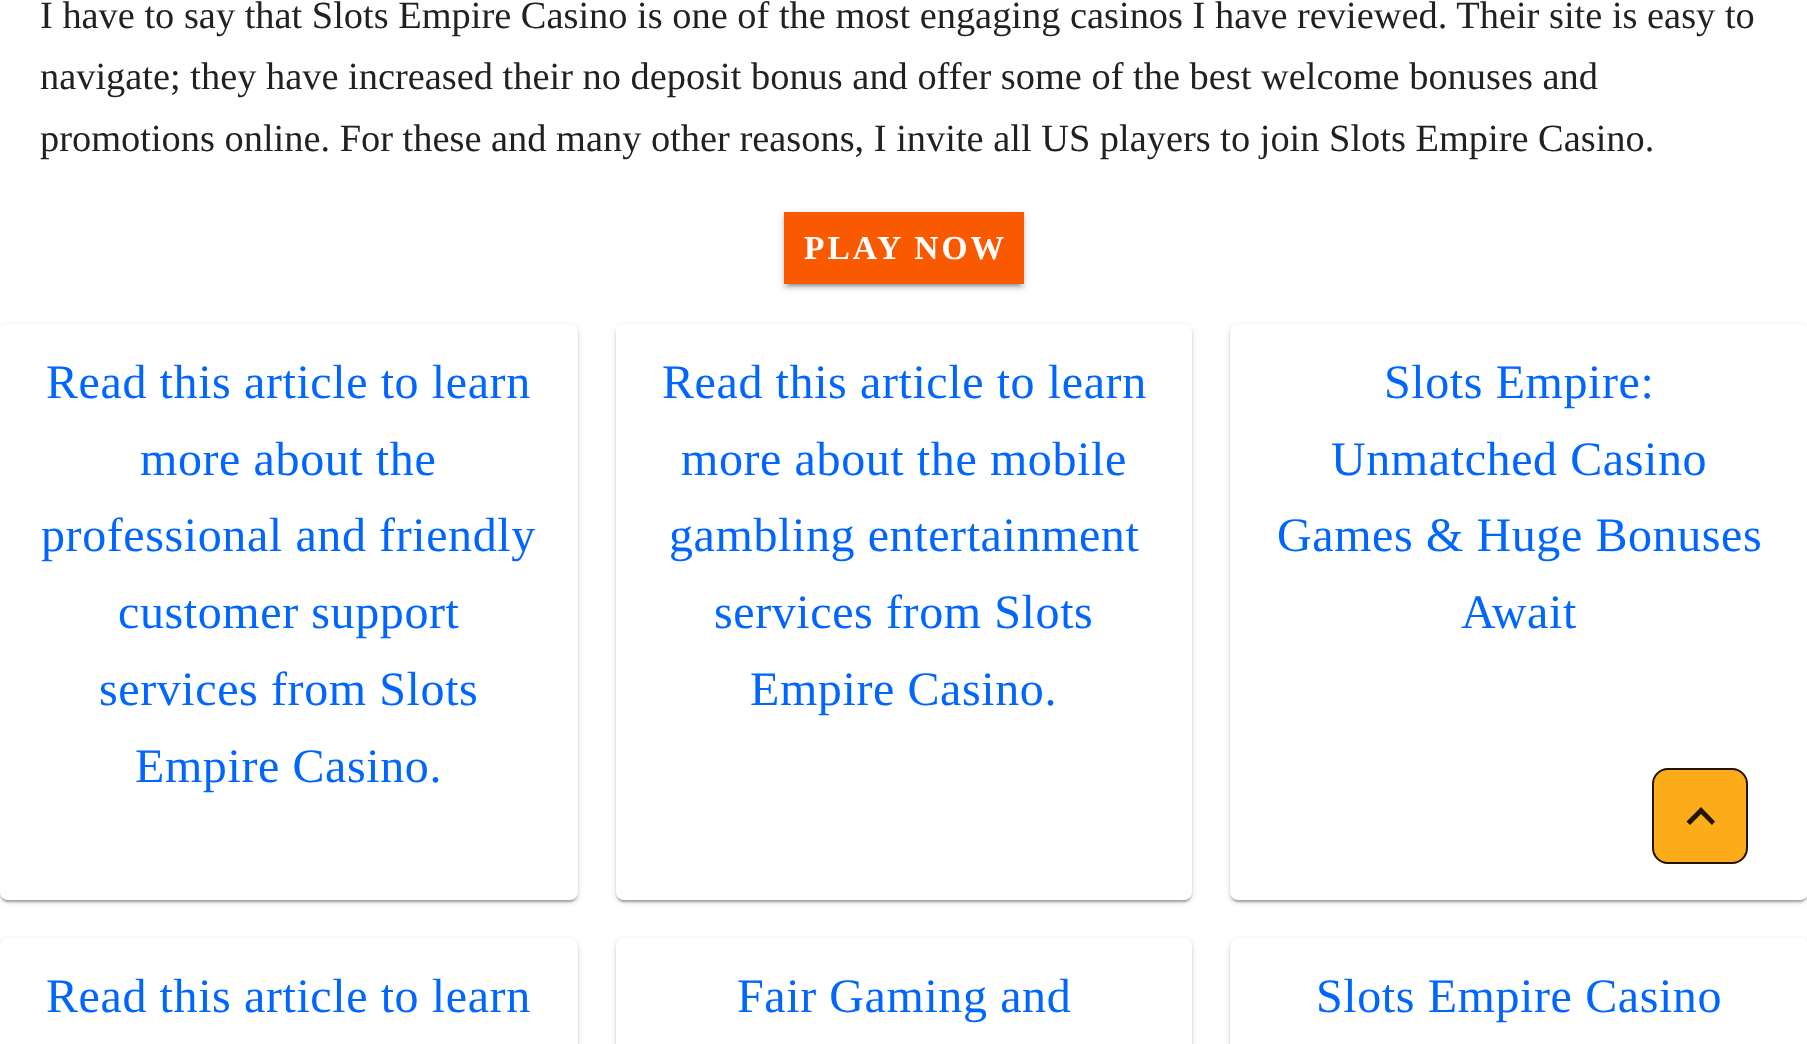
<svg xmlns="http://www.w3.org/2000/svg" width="1807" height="1044">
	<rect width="100%" height="100%" fill="#FFFFFF" />
	<g font-family="Liberation Serif" font-size="38.4" fill="#212121">
		<text x="40" y="28">I have to say that Slots Empire Casino is one of the most engaging casinos I have reviewed. Their site is easy to</text>
		<text x="40" y="89">navigate; they have increased their no deposit bonus and offer some of the best welcome bonuses and</text>
		<text x="40" y="151">promotions online. For these and many other reasons, I invite all US players to join Slots Empire Casino.</text>
	</g>
	<rect x="784" y="214" width="240" height="72" fill="#000000" fill-opacity="0.12" filter="blur(5px)" />
	<rect x="784" y="216" width="240" height="72" fill="#000000" fill-opacity="0.14" filter="blur(2px)" />
	<rect x="788" y="222" width="232" height="64" fill="#000000" fill-opacity="0.2" filter="blur(1px)" />
	<rect x="784" y="212" width="240" height="72" fill="#F95A00" />
	<text x="804" y="259" font-family="Liberation Serif" font-size="33.5" font-weight="700" letter-spacing="3" fill="#FFFFFF">PLAY NOW</text>
	<rect x="0" y="326" width="578" height="576" rx="8" fill="#000000" fill-opacity="0.12" filter="blur(3px)" />
	<rect x="0" y="326" width="578" height="576" rx="8" fill="#000000" fill-opacity="0.14" filter="blur(1px)" />
	<rect x="2" y="330" width="574" height="572" rx="6" fill="#000000" fill-opacity="0.2" filter="blur(1px)" />
	<rect x="0" y="324" width="578" height="576" rx="8" fill="#FFFFFF" />
	<g font-family="Liberation Serif" font-size="48" letter-spacing="0.6" fill="#0066FF">
		<text x="46" y="398">Read this article to learn</text>
		<text x="140" y="475">more about the</text>
		<text x="41" y="551">professional and friendly</text>
		<text x="118" y="628">customer support</text>
		<text x="99" y="705">services from Slots</text>
		<text x="135" y="782">Empire Casino.</text>
	</g>
	<rect x="616" y="326" width="576" height="576" rx="8" fill="#000000" fill-opacity="0.12" filter="blur(3px)" />
	<rect x="616" y="326" width="576" height="576" rx="8" fill="#000000" fill-opacity="0.14" filter="blur(1px)" />
	<rect x="618" y="330" width="572" height="572" rx="6" fill="#000000" fill-opacity="0.2" filter="blur(1px)" />
	<rect x="616" y="324" width="576" height="576" rx="8" fill="#FFFFFF" />
	<g font-family="Liberation Serif" font-size="48" letter-spacing="0.6" fill="#0066FF">
		<text x="662" y="398">Read this article to learn</text>
		<text x="681" y="475">more about the mobile</text>
		<text x="669" y="551">gambling entertainment</text>
		<text x="714" y="628">services from Slots</text>
		<text x="750" y="705">Empire Casino.</text>
	</g>
	<rect x="1230" y="326" width="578" height="576" rx="8" fill="#000000" fill-opacity="0.12" filter="blur(3px)" />
	<rect x="1230" y="326" width="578" height="576" rx="8" fill="#000000" fill-opacity="0.14" filter="blur(1px)" />
	<rect x="1232" y="330" width="574" height="572" rx="6" fill="#000000" fill-opacity="0.2" filter="blur(1px)" />
	<rect x="1230" y="324" width="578" height="576" rx="8" fill="#FFFFFF" />
	<g font-family="Liberation Serif" font-size="48" letter-spacing="0.6" fill="#0066FF">
		<text x="1384" y="398">Slots Empire:</text>
		<text x="1331" y="475">Unmatched Casino</text>
		<text x="1277" y="551">Games &amp; Huge Bonuses</text>
		<text x="1461" y="628">Await</text>
	</g>
	<rect x="0" y="940" width="578" height="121" rx="8" fill="#000000" fill-opacity="0.12" filter="blur(3px)" />
	<rect x="0" y="940" width="578" height="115" rx="8" fill="#000000" fill-opacity="0.14" filter="blur(1px)" />
	<rect x="0" y="938" width="578" height="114" rx="8" fill="#FFFFFF" />
	<text x="46" y="1012" font-family="Liberation Serif" font-size="48" letter-spacing="0.6" fill="#0066FF">Read this article to learn</text>
	<rect x="616" y="940" width="576" height="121" rx="8" fill="#000000" fill-opacity="0.12" filter="blur(3px)" />
	<rect x="616" y="940" width="576" height="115" rx="8" fill="#000000" fill-opacity="0.14" filter="blur(1px)" />
	<rect x="616" y="938" width="576" height="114" rx="8" fill="#FFFFFF" />
	<text x="737" y="1012" font-family="Liberation Serif" font-size="48" letter-spacing="0.6" fill="#0066FF">Fair Gaming and</text>
	<rect x="1230" y="940" width="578" height="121" rx="8" fill="#000000" fill-opacity="0.12" filter="blur(3px)" />
	<rect x="1230" y="940" width="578" height="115" rx="8" fill="#000000" fill-opacity="0.14" filter="blur(1px)" />
	<rect x="1230" y="938" width="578" height="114" rx="8" fill="#FFFFFF" />
	<text x="1316" y="1012" font-family="Liberation Serif" font-size="48" letter-spacing="0.6" fill="#0066FF">Slots Empire Casino</text>
	<rect x="1652" y="768" width="96" height="96" rx="16" fill="#FCAC18" />
	<rect x="1653" y="769" width="94" height="94" rx="15" fill="none" stroke="#000000" stroke-opacity="0.87" stroke-width="2" />
	<path d="M1690 825L1701 814L1712 825L1715 821.5L1701 807L1686.5 821.5Z" fill="#211603" />
</svg>
